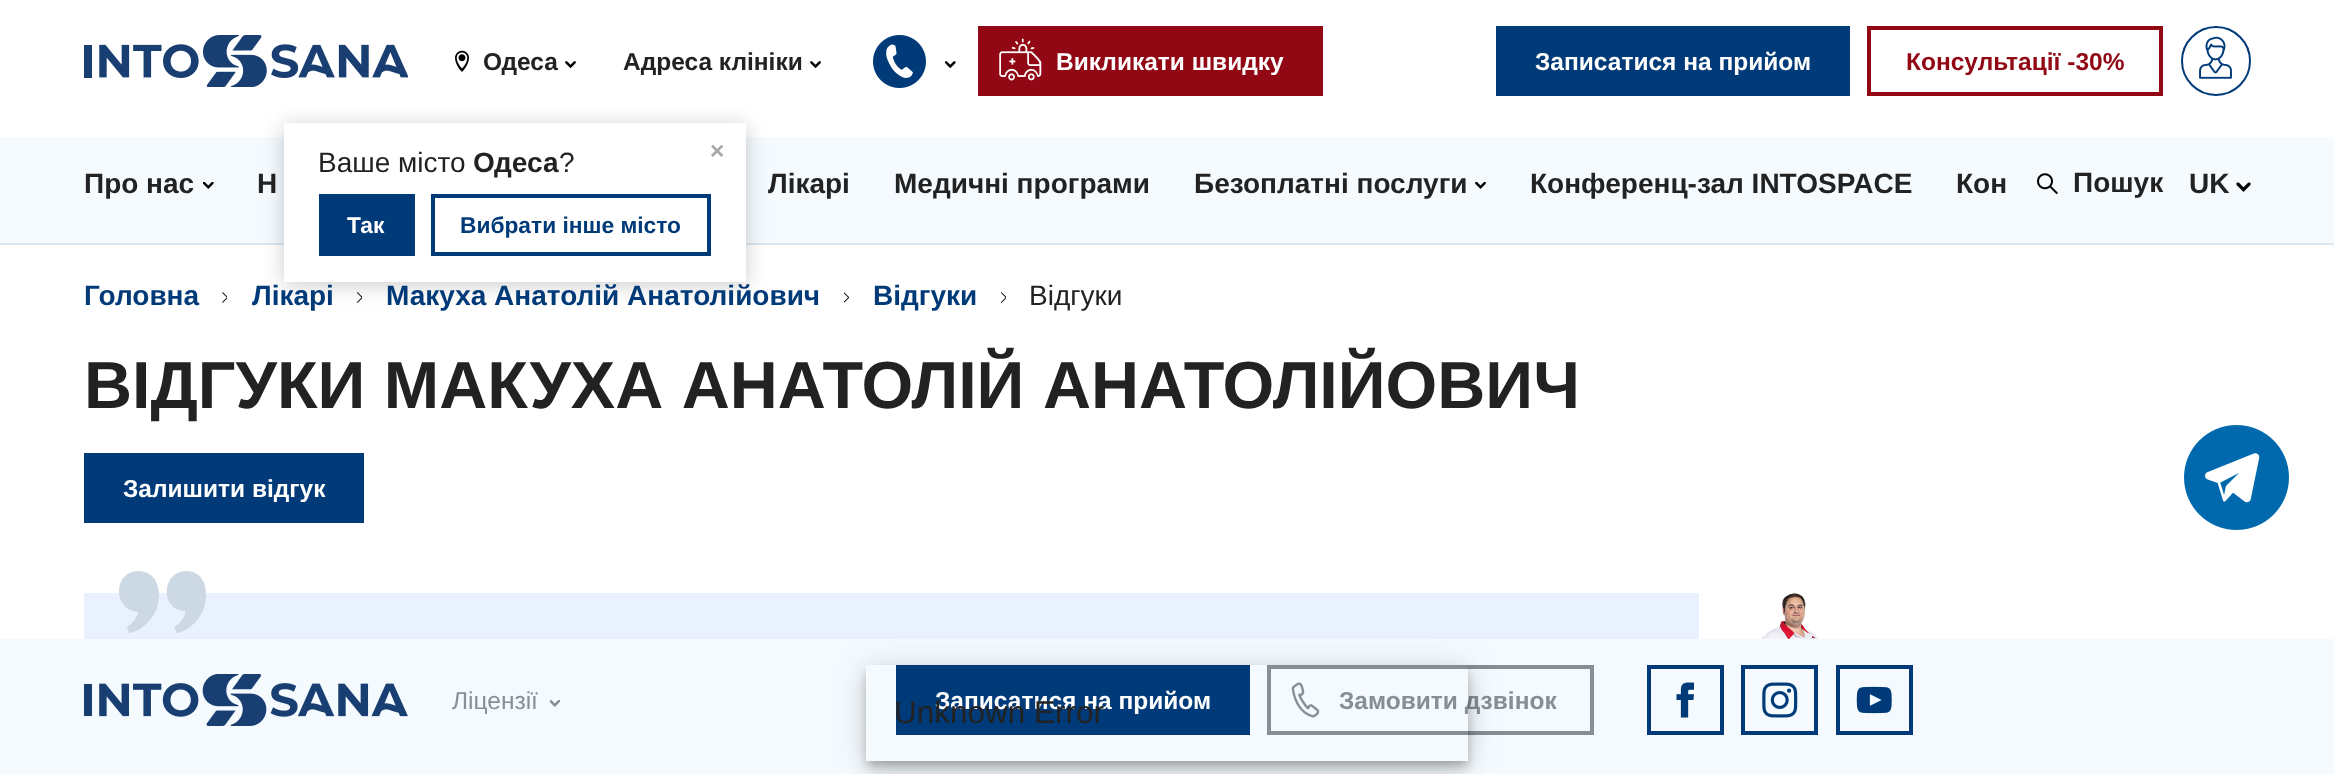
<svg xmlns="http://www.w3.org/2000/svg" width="2334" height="774">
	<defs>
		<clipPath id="clip1"><path d="M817 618H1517V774H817ZM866 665H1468V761H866Z" clip-rule="evenodd" /></clipPath>
		<clipPath id="clip2"><path d="M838 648H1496V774H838ZM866 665H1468V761H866Z" clip-rule="evenodd" /></clipPath>
		<clipPath id="clip3"><path d="M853 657H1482V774H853ZM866 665H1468V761H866Z" clip-rule="evenodd" /></clipPath>
	</defs>
	<rect width="100%" height="100%" fill="#FFFFFF" />
	<image x="84" y="35" width="324" height="52" href="assets/img1.png" />
	<image x="455" y="50" width="14" height="22" href="assets/img2.png" />
	<text x="483" y="70" font-family="Liberation Sans" font-size="24.5" font-weight="700" fill="#222222">Одеса</text>
	<image x="565" y="61" width="11" height="7" href="assets/img3.png" />
	<rect x="0" y="137" width="2334" height="106" fill="#F5FAFE" />
	<rect x="0" y="243" width="2334" height="2" fill="#DBE8F1" />
	<image x="357" y="292" width="5" height="11" href="assets/img13.png" />
	<rect x="284" y="126" width="462" height="159" fill="#000000" fill-opacity="0.2" filter="blur(10.5px)" />
	<rect x="284" y="123" width="462" height="159" fill="#FFFFFF" />
	<text x="318" y="172" font-family="Liberation Sans" font-size="28" fill="#222222">Ваше місто</text>
	<text x="473" y="172" font-family="Liberation Sans" font-size="28" font-weight="700" fill="#222222">Одеса</text>
	<text x="559" y="172" font-family="Liberation Sans" font-size="28" fill="#222222">?</text>
	<text x="710" y="159" font-family="Liberation Sans" font-size="24.5" font-weight="700" fill="#A7A7A7">×</text>
	<rect x="319" y="194" width="96" height="62" fill="#003A78" />
	<text x="347" y="233" font-family="Liberation Sans" font-size="22.75" font-weight="700" fill="#FFFFFF">Так</text>
	<rect x="433" y="196" width="276" height="58" fill="none" stroke="#003A78" stroke-width="4" />
	<text x="460" y="233" font-family="Liberation Sans" font-size="22.75" font-weight="700" fill="#003A78">Вибрати інше місто</text>
	<image x="873" y="35" width="53" height="53" href="assets/img4.png" />
	<image x="945" y="61" width="11" height="7" href="assets/img5.png" />
	<text x="623" y="70" font-family="Liberation Sans" font-size="24.5" font-weight="700" fill="#222222">Адреса клініки</text>
	<image x="810" y="61" width="11" height="7" href="assets/img3.png" />
	<rect x="978" y="26" width="345" height="70" fill="#910814" />
	<image x="999" y="38" width="43" height="43" href="assets/img6.png" />
	<text x="1056" y="70" font-family="Liberation Sans" font-size="24.5" font-weight="700" fill="#FFFFFF">Викликати швидку</text>
	<rect x="1496" y="26" width="354" height="70" fill="#003A78" />
	<text x="1535" y="70" font-family="Liberation Sans" font-size="24.5" font-weight="700" fill="#FFFFFF">Записатися на прийом</text>
	<rect x="1869" y="28" width="292" height="66" fill="none" stroke="#910814" stroke-width="4" />
	<text x="1906" y="70" font-family="Liberation Sans" font-size="24.5" font-weight="700" fill="#910814">Консультації -30%</text>
	<circle cx="2216" cy="61" r="34" fill="none" stroke="#003A78" stroke-width="2" />
	<image x="2199" y="36" width="33" height="43" href="assets/img7.png" />
	<text x="84" y="193" font-family="Liberation Sans" font-size="28" font-weight="700" fill="#222222">Про нас</text>
	<image x="203" y="182" width="11" height="7" href="assets/img8.png" />
	<g font-family="Liberation Sans" font-size="28" font-weight="700" fill="#222222">
		<text x="257" y="193">Н</text>
		<text x="768" y="193">Лікарі</text>
		<text x="894" y="193">Медичні програми</text>
		<text x="1194" y="193">Безоплатні послуги</text>
	</g>
	<image x="1475" y="182" width="11" height="7" href="assets/img9.png" />
	<g font-family="Liberation Sans" font-size="28" font-weight="700" fill="#222222">
		<text x="1530" y="193">Конференц-зал INTOSPACE</text>
		<text x="1956" y="193">Кон</text>
	</g>
	<image x="2037" y="173" width="21" height="22" href="assets/img10.png" />
	<g font-family="Liberation Sans" font-size="28" font-weight="700" fill="#222222">
		<text x="2073" y="192">Пошук</text>
		<text x="2189" y="193">UK</text>
	</g>
	<image x="2236" y="182" width="15" height="10" href="assets/img11.png" />
	<text x="84" y="305" font-family="Liberation Sans" font-size="28" font-weight="700" fill="#003A78">Головна</text>
	<image x="222" y="292" width="5" height="11" href="assets/img12.png" />
	<g font-family="Liberation Sans" font-size="28" font-weight="700" fill="#003A78">
		<text x="252" y="305">Лікарі</text>
		<text x="386" y="305">Макуха Анатолій Анатолійович</text>
	</g>
	<image x="844" y="292" width="5" height="11" href="assets/img14.png" />
	<text x="873" y="305" font-family="Liberation Sans" font-size="28" font-weight="700" fill="#003A78">Відгуки</text>
	<image x="1001" y="292" width="5" height="11" href="assets/img13.png" />
	<text x="1029" y="305" font-family="Liberation Sans" font-size="28" fill="#222222">Відгуки</text>
	<text x="84" y="408" font-family="Liberation Sans" font-size="66.5" font-weight="700" fill="#222222">ВІДГУКИ МАКУХА АНАТОЛІЙ АНАТОЛІЙОВИЧ</text>
	<rect x="84" y="453" width="280" height="70" fill="#003A78" />
	<text x="123" y="497" font-family="Liberation Sans" font-size="24.5" font-weight="700" fill="#FFFFFF">Залишити відгук</text>
	<rect x="84" y="593" width="1615" height="46" fill="#E9F1FF" />
	<path d="M186 571C197 571 206 578 206 595C206 618 187 632 177 633L174 627C181 623 186 616 185 611C159 610 162 571 186 571ZM138 571C149 571 159 578 159 595C159 618 140 632 129 633L127 627C133 623 138 616 138 612C111 609 114 571 138 571Z" fill="#CCD8E4" />
	<image x="1761" y="593" width="58" height="46" href="assets/img15.png" />
	<rect x="0" y="639" width="2334" height="135" fill="#F5FAFE" />
	<image x="84" y="674" width="324" height="52" href="assets/img16.png" />
	<text x="452" y="709" font-family="Liberation Sans" font-size="24.5" fill="#868E96">Ліцензії</text>
	<image x="550" y="700" width="10" height="7" href="assets/img17.png" />
	<rect x="896" y="665" width="354" height="70" fill="#003A78" />
	<text x="935" y="709" font-family="Liberation Sans" font-size="24.5" font-weight="700" fill="#FFFFFF">Записатися на прийом</text>
	<rect x="1269" y="667" width="323" height="66" fill="none" stroke="#868E96" stroke-width="4" />
	<image x="1291" y="682" width="29" height="36" href="assets/img18.png" />
	<text x="1339" y="709" font-family="Liberation Sans" font-size="24.5" font-weight="700" fill="#868E96">Замовити дзвінок</text>
	<rect x="1649" y="667" width="73" height="66" fill="none" stroke="#003A78" stroke-width="4" />
	<image x="1676" y="682" width="18" height="36" href="assets/img19.png" />
	<rect x="1743" y="667" width="73" height="66" fill="none" stroke="#003A78" stroke-width="4" />
	<image x="1762" y="682" width="36" height="36" href="assets/img20.png" />
	<rect x="1838" y="667" width="73" height="66" fill="none" stroke="#003A78" stroke-width="4" />
	<image x="1856" y="686" width="36" height="28" href="assets/img21.png" />
	<g clip-path="url(#clip1)">
		<rect x="866" y="667" width="602" height="96" fill="#000000" fill-opacity="0.12" filter="blur(16px)" />
	</g>
	<g clip-path="url(#clip2)">
		<rect x="866" y="676" width="602" height="96" fill="#000000" fill-opacity="0.14" filter="blur(9px)" />
	</g>
	<g clip-path="url(#clip3)">
		<rect x="868" y="672" width="599" height="93" fill="#000000" fill-opacity="0.2" filter="blur(4.5px)" />
	</g>
	<text x="894" y="723" font-family="Liberation Sans" font-size="31.5" fill="#222222">Unknown Error</text>
	<image x="2184" y="425" width="105" height="105" href="assets/img22.png" />
</svg>
